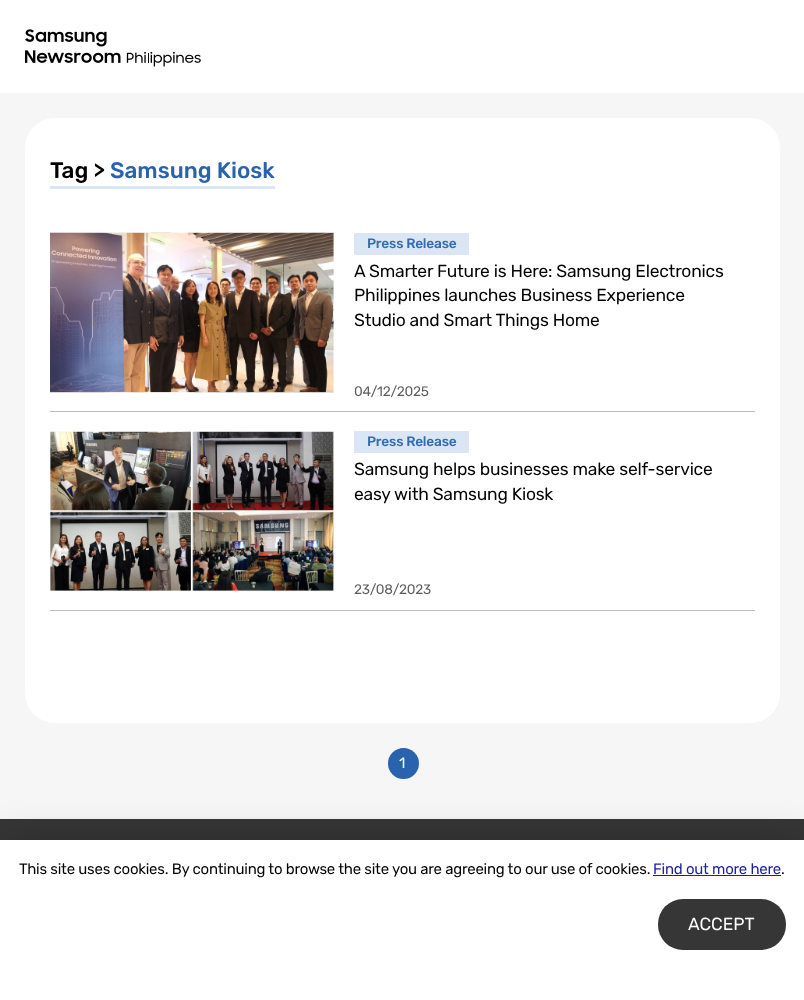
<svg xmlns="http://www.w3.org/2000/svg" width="804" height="1000">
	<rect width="100%" height="100%" fill="#FFFFFF" />
	<rect x="0" y="93" width="804" height="726" fill="#F6F6F6" />
	<rect x="25" y="118" width="755" height="605" rx="30" fill="#FFFFFF" />
	<rect x="50" y="186" width="225" height="3" fill="#DAE6F4" />
	<text x="50" y="178" font-family="Rubik" font-size="22.5" font-weight="500" fill="#000000">Tag &gt;</text>
	<text x="110" y="178" font-family="Rubik" font-size="22.5" font-weight="500" fill="#2963AD">Samsung Kiosk</text>
	<rect x="50" y="411" width="705" height="1" fill="#BCBCBC" />
	<image x="50" y="232" width="284" height="161" href="assets/img1.png" />
	<rect x="354" y="233" width="115" height="22" fill="#DAE6F4" />
	<text x="367" y="248" font-family="Rubik" font-size="13.75" font-weight="500" letter-spacing="-0.22" fill="#356CB1">Press Release</text>
	<g font-family="Rubik" font-size="17.5" letter-spacing="-0.22" fill="#000000">
		<text x="354" y="277">A Smarter Future is Here: Samsung Electronics</text>
		<text x="354" y="301">Philippines launches Business Experience</text>
		<text x="354" y="326">Studio and Smart Things Home</text>
	</g>
	<text x="354" y="396" font-family="Rubik" font-size="13.75" letter-spacing="-0.22" fill="#5D5D5D">04/12/2025</text>
	<rect x="50" y="610" width="705" height="1" fill="#BCBCBC" />
	<image x="50" y="431" width="284" height="161" href="assets/img2.png" />
	<rect x="354" y="431" width="115" height="22" fill="#DAE6F4" />
	<text x="367" y="446" font-family="Rubik" font-size="13.75" font-weight="500" letter-spacing="-0.22" fill="#356CB1">Press Release</text>
	<g font-family="Rubik" font-size="17.5" letter-spacing="-0.22" fill="#000000">
		<text x="354" y="475">Samsung helps businesses make self-service</text>
		<text x="354" y="500">easy with Samsung Kiosk</text>
	</g>
	<text x="354" y="594" font-family="Rubik" font-size="13.75" letter-spacing="-0.22" fill="#5D5D5D">23/08/2023</text>
	<circle cx="403.5" cy="763.5" r="15.5" fill="#2963AD" />
	<text x="399" y="768" font-family="Rubik" font-size="15" letter-spacing="-0.22" fill="#FFFFFF">1</text>
	<rect x="0" y="819" width="804" height="21" fill="#363636" />
	<image x="25" y="29" width="176" height="38" href="assets/img3.png" />
	<rect x="0" y="840" width="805" height="160" fill="#000000" fill-opacity="0.2" filter="blur(19px)" />
	<rect x="0" y="840" width="804" height="160" fill="#FFFFFF" />
	<text x="19" y="874" font-family="Rubik" font-size="15" letter-spacing="-0.22" fill="#000000">This site uses cookies. By continuing to browse the site you are agreeing to our use of cookies.</text>
	<text x="653" y="874" font-family="Rubik" font-size="15" letter-spacing="-0.22" fill="#1920A2">Find out more here</text>
	<rect x="653" y="875" width="128" height="1" fill="#1920A2" />
	<text x="781" y="874" font-family="Rubik" font-size="15" letter-spacing="-0.22" fill="#000000">.</text>
	<rect x="658" y="899" width="128" height="51" rx="25" fill="#363636" />
	<text x="688" y="930" font-family="Rubik" font-size="17.5" fill="#FFFFFF">ACCEPT</text>
</svg>
